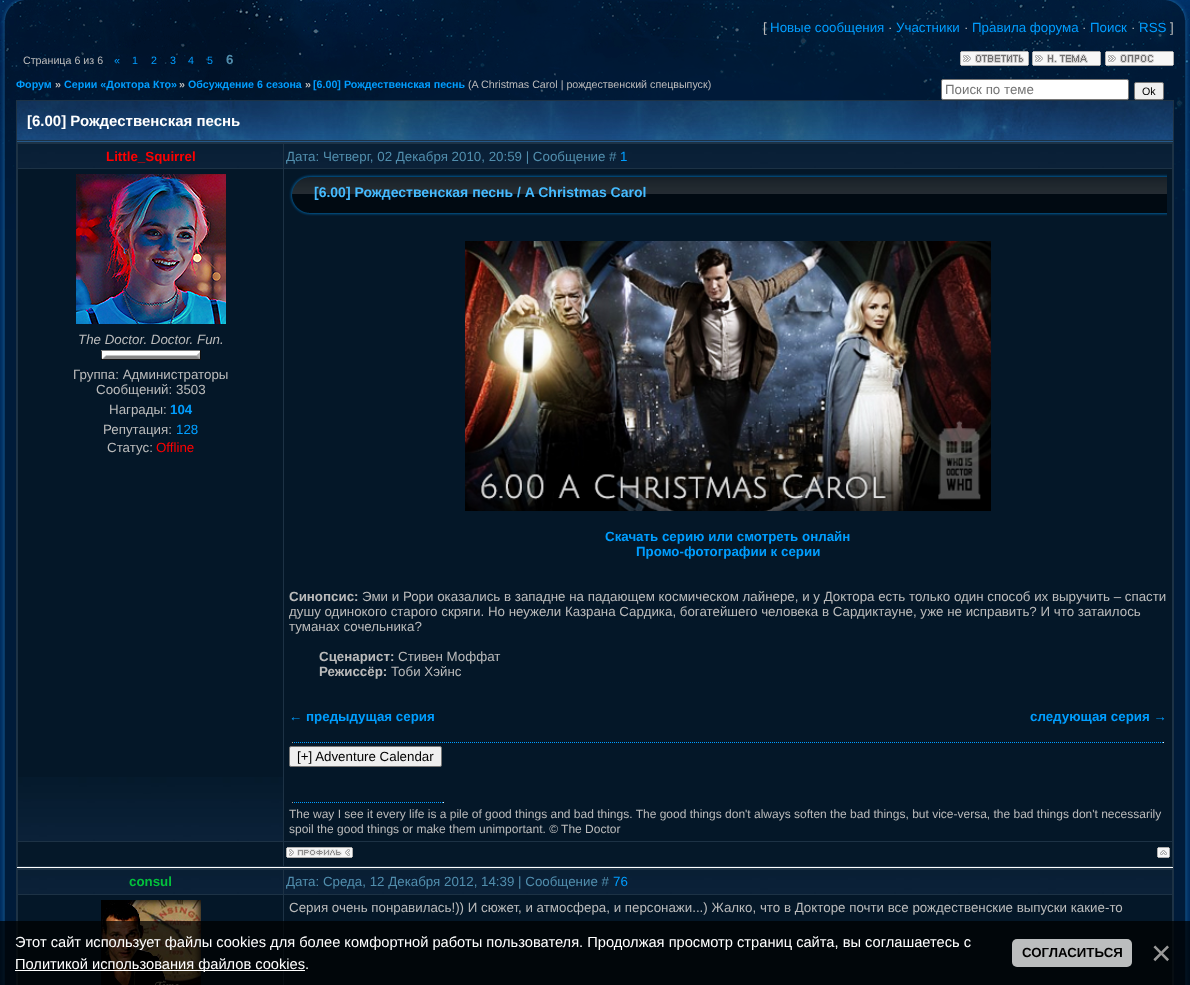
<svg xmlns="http://www.w3.org/2000/svg" width="1190" height="985">
	<rect width="100%" height="100%" fill="#002D5F" />
	<image x="0" y="0" width="1190" height="229" href="assets/img1.png" />
	<image x="2" y="0" width="30" height="20" href="assets/img2.png" />
	<rect x="32" y="0" width="1126" height="20" fill="#000000" fill-opacity="0.4" />
	<image x="1158" y="0" width="30" height="20" href="assets/img3.png" />
	<image x="1" y="20" width="15" height="965" href="assets/img4.png" />
	<rect x="16" y="20" width="1158" height="80" fill="#000000" fill-opacity="0.4" />
	<text x="763" y="32" font-family="Liberation Sans" font-size="13.33" fill="#BBBBBB">[</text>
	<text x="770" y="32" font-family="Liberation Sans" font-size="13.33" fill="#009EFF">Новые сообщения</text>
	<text x="888" y="32" font-family="Liberation Sans" font-size="13.33" fill="#BBBBBB">·</text>
	<text x="896" y="32" font-family="Liberation Sans" font-size="13.33" fill="#009EFF">Участники</text>
	<text x="964" y="32" font-family="Liberation Sans" font-size="13.33" fill="#BBBBBB">·</text>
	<text x="972" y="32" font-family="Liberation Sans" font-size="13.33" fill="#009EFF">Правила форума</text>
	<text x="1082" y="32" font-family="Liberation Sans" font-size="13.33" fill="#BBBBBB">·</text>
	<text x="1090" y="32" font-family="Liberation Sans" font-size="13.33" fill="#009EFF">Поиск</text>
	<text x="1131" y="32" font-family="Liberation Sans" font-size="13.33" fill="#BBBBBB">·</text>
	<text x="1139" y="32" font-family="Liberation Sans" font-size="13.33" fill="#009EFF">RSS</text>
	<text x="1170" y="32" font-family="Liberation Sans" font-size="13.33" fill="#BBBBBB">]</text>
	<text x="23" y="64" font-family="Liberation Sans" font-size="10.7" fill="#BBBBBB">Страница 6 из 6</text>
	<g font-family="Liberation Sans" font-size="10.7" fill="#009EFF">
		<text x="114" y="64">«</text>
		<text x="132" y="64">1</text>
		<text x="151" y="64">2</text>
		<text x="170" y="64">3</text>
		<text x="188" y="64">4</text>
		<text x="207" y="64">5</text>
	</g>
	<text x="226" y="64" font-family="Liberation Sans" font-size="13.33" font-weight="700" fill="#518EAD">6</text>
	<image x="960" y="51" width="69" height="15" href="assets/img5.png" />
	<image x="1032" y="51" width="69" height="15" href="assets/img6.png" />
	<image x="1105" y="51" width="69" height="15" href="assets/img7.png" />
	<text x="16" y="88" font-family="Liberation Sans" font-size="10.7" font-weight="700" fill="#009EFF">Форум</text>
	<text x="55" y="88" font-family="Liberation Sans" font-size="10.7" font-weight="700" fill="#BBBBBB">»</text>
	<text x="64" y="88" font-family="Liberation Sans" font-size="10.7" font-weight="700" fill="#009EFF">Серии «Доктора Кто»</text>
	<text x="179" y="88" font-family="Liberation Sans" font-size="10.7" font-weight="700" fill="#BBBBBB">»</text>
	<text x="188" y="88" font-family="Liberation Sans" font-size="10.7" font-weight="700" fill="#009EFF">Обсуждение 6 сезона</text>
	<text x="305" y="88" font-family="Liberation Sans" font-size="10.7" font-weight="700" fill="#BBBBBB">»</text>
	<text x="313" y="88" font-family="Liberation Sans" font-size="10.7" font-weight="700" fill="#009EFF">[6.00] Рождественская песнь</text>
	<text x="468" y="88" font-family="Liberation Sans" font-size="10.7" fill="#BBBBBB">(A Christmas Carol | рождественский спецвыпуск)</text>
	<rect x="941.5" y="79.5" width="187" height="20" rx="1.5" fill="#FFFFFF" stroke="#767676" />
	<text x="945" y="94" font-family="Liberation Sans" font-size="13.33" fill="#757575">Поиск по теме</text>
	<rect x="1134.5" y="82.5" width="29" height="17" rx="1.5" fill="#EFEFEF" stroke="#767676" />
	<text x="1142" y="95" font-family="Liberation Sans" font-size="10.7" fill="#000000">Ok</text>
	<rect x="16" y="100" width="1158" height="885" fill="#1D3245" />
	<image x="17" y="101" width="1156" height="39" href="assets/img8.png" />
	<text x="27" y="126" font-family="Liberation Sans" font-size="15" font-weight="700" fill="#FFFFFF">[6.00] Рождественская песнь</text>
	<rect x="17" y="141" width="1156" height="1" fill="#255888" />
	<rect x="17" y="867" width="1156" height="1" fill="#FFFFFF" />
	<image x="18" y="144" width="265" height="24" href="assets/img9.png" />
	<text x="106" y="161" font-family="Liberation Sans" font-size="13.33" font-weight="700" fill="#FF0000">Little_Squirrel</text>
	<image x="284" y="144" width="888" height="24" href="assets/img10.png" />
	<text x="286" y="161" font-family="Liberation Sans" font-size="13.33" fill="#518EAD">Дата: Четверг, 02 Декабря 2010, 20:59 | Сообщение #</text>
	<text x="620" y="161" font-family="Liberation Sans" font-size="13.33" fill="#009EFF">1</text>
	<rect x="18" y="169" width="265" height="608" fill="#041728" />
	<image x="18" y="777" width="265" height="64" href="assets/img11.png" />
	<image x="76" y="174" width="150" height="150" href="assets/img12.png" />
	<text x="78" y="344" font-family="Liberation Sans" font-size="13.33" font-style="italic" fill="#BBBBBB">The Doctor. Doctor. Fun.</text>
	<image x="101" y="350" width="100" height="10" href="assets/img13.png" />
	<g font-family="Liberation Sans" font-size="13.33" fill="#BBBBBB">
		<text x="73" y="379">Группа: Администраторы</text>
		<text x="96" y="394">Сообщений: 3503</text>
		<text x="109" y="414">Награды:</text>
	</g>
	<text x="170" y="414" font-family="Liberation Sans" font-size="13.33" font-weight="700" fill="#009EFF">104</text>
	<text x="103" y="434" font-family="Liberation Sans" font-size="13.33" fill="#BBBBBB">Репутация:</text>
	<text x="176" y="434" font-family="Liberation Sans" font-size="13.33" fill="#009EFF">128</text>
	<text x="107" y="452" font-family="Liberation Sans" font-size="13.33" fill="#BBBBBB">Статус:</text>
	<text x="156" y="452" font-family="Liberation Sans" font-size="13.33" fill="#FF0000">Offline</text>
	<rect x="284" y="169" width="888" height="672" fill="#041728" />
	<image x="289" y="174" width="878" height="42" href="assets/img14.png" />
	<text x="314" y="197" font-family="Liberation Sans" font-size="14" font-weight="700" fill="#45BBFF">[6.00] Рождественская песнь / A Christmas Carol</text>
	<image x="465" y="241" width="526" height="270" href="assets/img15.png" />
	<g font-family="Liberation Sans" font-size="13.33" font-weight="700" fill="#009EFF">
		<text x="605" y="541">Скачать серию или смотреть онлайн</text>
		<text x="636" y="556">Промо-фотографии к серии</text>
	</g>
	<text x="289" y="601" font-family="Liberation Sans" font-size="13.33" font-weight="700" fill="#BBBBBB">Синопсис:</text>
	<g font-family="Liberation Sans" font-size="13.33" fill="#BBBBBB">
		<text x="362" y="601">Эми и Рори оказались в западне на падающем космическом лайнере, и у Доктора есть только один способ их выручить – спасти</text>
		<text x="289" y="616">душу одинокого старого скряги. Но неужели Казрана Сардика, богатейшего человека в Сардиктауне, уже не исправить? И что затаилось</text>
		<text x="289" y="631">туманах сочельника?</text>
	</g>
	<text x="319" y="661" font-family="Liberation Sans" font-size="13.33" font-weight="700" fill="#BBBBBB">Сценарист:</text>
	<text x="398" y="661" font-family="Liberation Sans" font-size="13.33" fill="#BBBBBB">Стивен Моффат</text>
	<text x="319" y="676" font-family="Liberation Sans" font-size="13.33" font-weight="700" fill="#BBBBBB">Режиссёр:</text>
	<text x="391" y="676" font-family="Liberation Sans" font-size="13.33" fill="#BBBBBB">Тоби Хэйнс</text>
	<g font-family="Liberation Sans" font-size="13.33" font-weight="700" fill="#009EFF">
		<text x="289" y="721">← предыдущая серия</text>
		<text x="1030" y="721">следующая серия →</text>
	</g>
	<path d="M292 742.5H1164" fill="none" stroke="#009EFF" stroke-dasharray="1 1" />
	<rect x="1163" y="742" width="1" height="1" fill="#EEEEEE" />
	<rect x="292" y="742" width="1" height="1" fill="#9F9F9F" />
	<rect x="289.5" y="746.5" width="152" height="20" rx="1.5" fill="#EFEFEF" stroke="#767676" />
	<text x="297" y="761" font-family="Liberation Sans" font-size="13.33" fill="#000000">[+] Adventure Calendar</text>
	<path d="M292 802.5H444" fill="none" stroke="#009EFF" stroke-dasharray="1 1" />
	<rect x="443" y="802" width="1" height="1" fill="#EEEEEE" />
	<rect x="292" y="802" width="1" height="1" fill="#9F9F9F" />
	<g font-family="Liberation Sans" font-size="12" fill="#BBBBBB">
		<text x="289" y="818">The way I see it every life is a pile of good things and bad things. The good things don't always soften the bad things, but vice-versa, the bad things don't necessarily</text>
		<text x="289" y="833">spoil the good things or make them unimportant. © The Doctor</text>
	</g>
	<rect x="18" y="842" width="265" height="24" fill="#051829" />
	<rect x="284" y="842" width="888" height="24" fill="#051829" />
	<image x="286" y="847" width="67" height="11" href="assets/img16.png" />
	<image x="1157" y="847" width="13" height="11" href="assets/img17.png" />
	<image x="18" y="870" width="265" height="24" href="assets/img9.png" />
	<text x="129" y="886" font-family="Liberation Sans" font-size="13.33" font-weight="700" fill="#03C03C">consul</text>
	<image x="284" y="870" width="888" height="24" href="assets/img10.png" />
	<text x="286" y="886" font-family="Liberation Sans" font-size="13.33" fill="#518EAD">Дата: Среда, 12 Декабря 2012, 14:39 | Сообщение #</text>
	<text x="613" y="886" font-family="Liberation Sans" font-size="13.33" fill="#009EFF">76</text>
	<rect x="18" y="895" width="265" height="90" fill="#041728" />
	<image x="101" y="900" width="100" height="85" href="assets/img18.png" />
	<rect x="284" y="895" width="888" height="90" fill="#041728" />
	<text x="289" y="912" font-family="Liberation Sans" font-size="13.33" fill="#BBBBBB">Серия очень понравилась!)) И сюжет, и атмосфера, и персонажи...) Жалко, что в Докторе почти все рождественские выпуски какие-то</text>
	<image x="1174" y="20" width="15" height="965" href="assets/img19.png" />
	<rect x="0" y="921" width="1190" height="64" fill="#000000" fill-opacity="0.73" />
	<text x="15" y="947" font-family="Liberation Sans" font-size="14.67" fill="#FFFFFF">Этот сайт использует файлы cookies для более комфортной работы пользователя. Продолжая просмотр страниц сайта, вы соглашаетесь с</text>
	<rect x="15" y="970" width="290" height="1" fill="#FFFFFF" />
	<text x="15" y="969" font-family="Liberation Sans" font-size="14.67" fill="#FFFFFF">Политикой использования файлов cookies.</text>
	<rect x="1012" y="939" width="120" height="28" rx="5" fill="#BBBDBE" />
	<text x="1022" y="957" font-family="Liberation Sans" font-size="13.25" font-weight="700" fill="#000000">СОГЛАСИТЬСЯ</text>
	<text x="1151" y="965" font-family="Liberation Sans" font-size="35" fill="#999999">×</text>
</svg>
